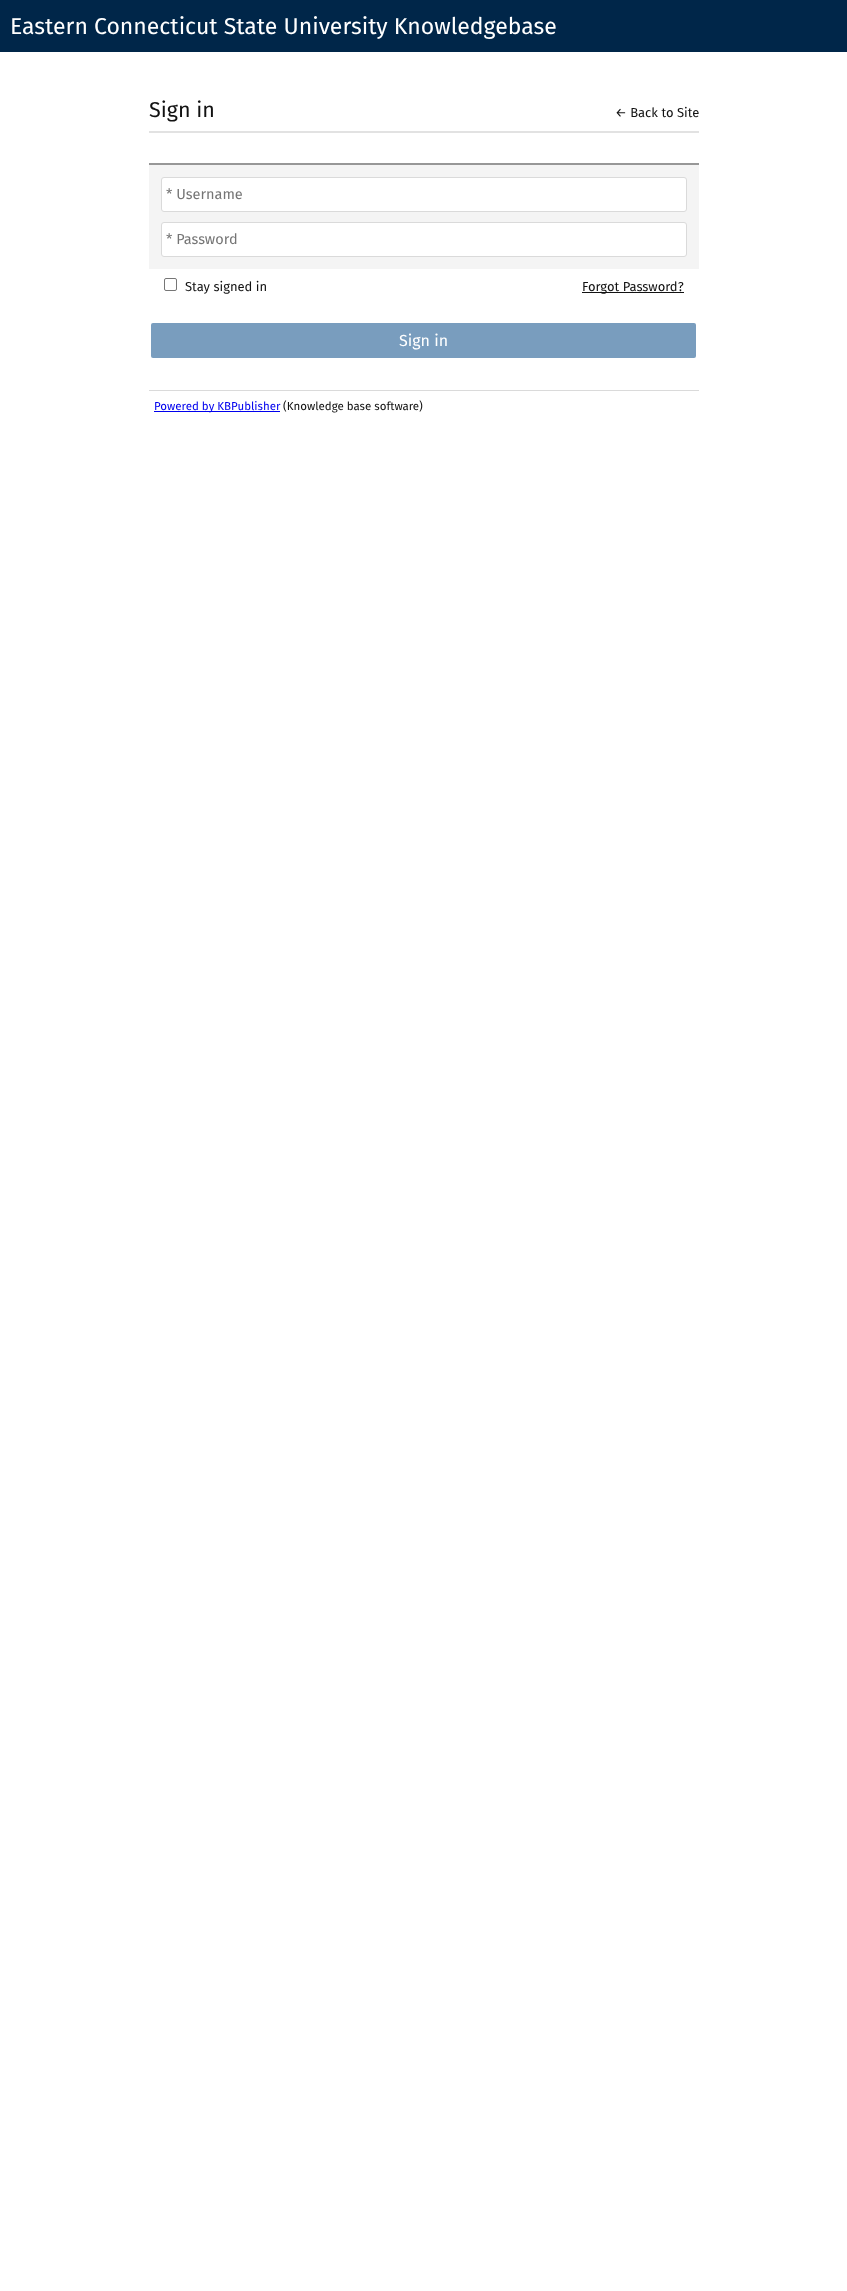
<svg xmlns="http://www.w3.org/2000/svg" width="847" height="2291">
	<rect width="100%" height="100%" fill="#FFFFFF" />
	<rect x="0" y="0" width="847" height="52" fill="#002649" />
	<text x="10" y="34" font-family="Fira Sans" font-size="23" fill="#FFFFFF">Eastern Connecticut State University Knowledgebase</text>
	<rect x="149" y="131" width="550" height="2" fill="#E2E2E2" />
	<text x="149" y="117" font-family="Fira Sans" font-size="21.5" fill="#121212">Sign in</text>
	<text x="615" y="117" font-family="Fira Sans" font-size="13" fill="#121212">← Back to Site</text>
	<rect x="149" y="163" width="550" height="2" fill="#979797" />
	<rect x="149" y="165" width="550" height="104" fill="#F4F4F4" />
	<rect x="161.5" y="177.5" width="525" height="34" rx="2.5" fill="#FFFFFF" stroke="#DADADA" />
	<text x="166" y="199" font-family="Fira Sans" font-size="14.5" fill="#757575">* Username</text>
	<rect x="161.5" y="222.5" width="525" height="34" rx="2.5" fill="#FFFFFF" stroke="#DADADA" />
	<text x="166" y="244" font-family="Fira Sans" font-size="14.5" fill="#757575">* Password</text>
	<rect x="164.5" y="278.5" width="12" height="12" rx="1.5" fill="none" stroke="#767676" />
	<text x="185" y="291" font-family="Fira Sans" font-size="13" fill="#121212">Stay signed in</text>
	<rect x="582" y="292" width="102" height="1" fill="#121212" />
	<text x="582" y="291" font-family="Fira Sans" font-size="13" fill="#121212">Forgot Password?</text>
	<rect x="151" y="323" width="545" height="35" rx="2" fill="#799DBE" />
	<text x="399" y="346" font-family="Fira Sans" font-size="16" fill="#FFFFFF">Sign in</text>
	<rect x="149" y="390" width="550" height="1" fill="#DADADA" />
	<rect x="154" y="411" width="126" height="1" fill="#0000EE" />
	<text x="154" y="410" font-family="Fira Sans" font-size="11.5" fill="#0000EE">Powered by KBPublisher</text>
	<text x="283" y="410" font-family="Fira Sans" font-size="11.5" fill="#121212">(Knowledge base software)</text>
</svg>
